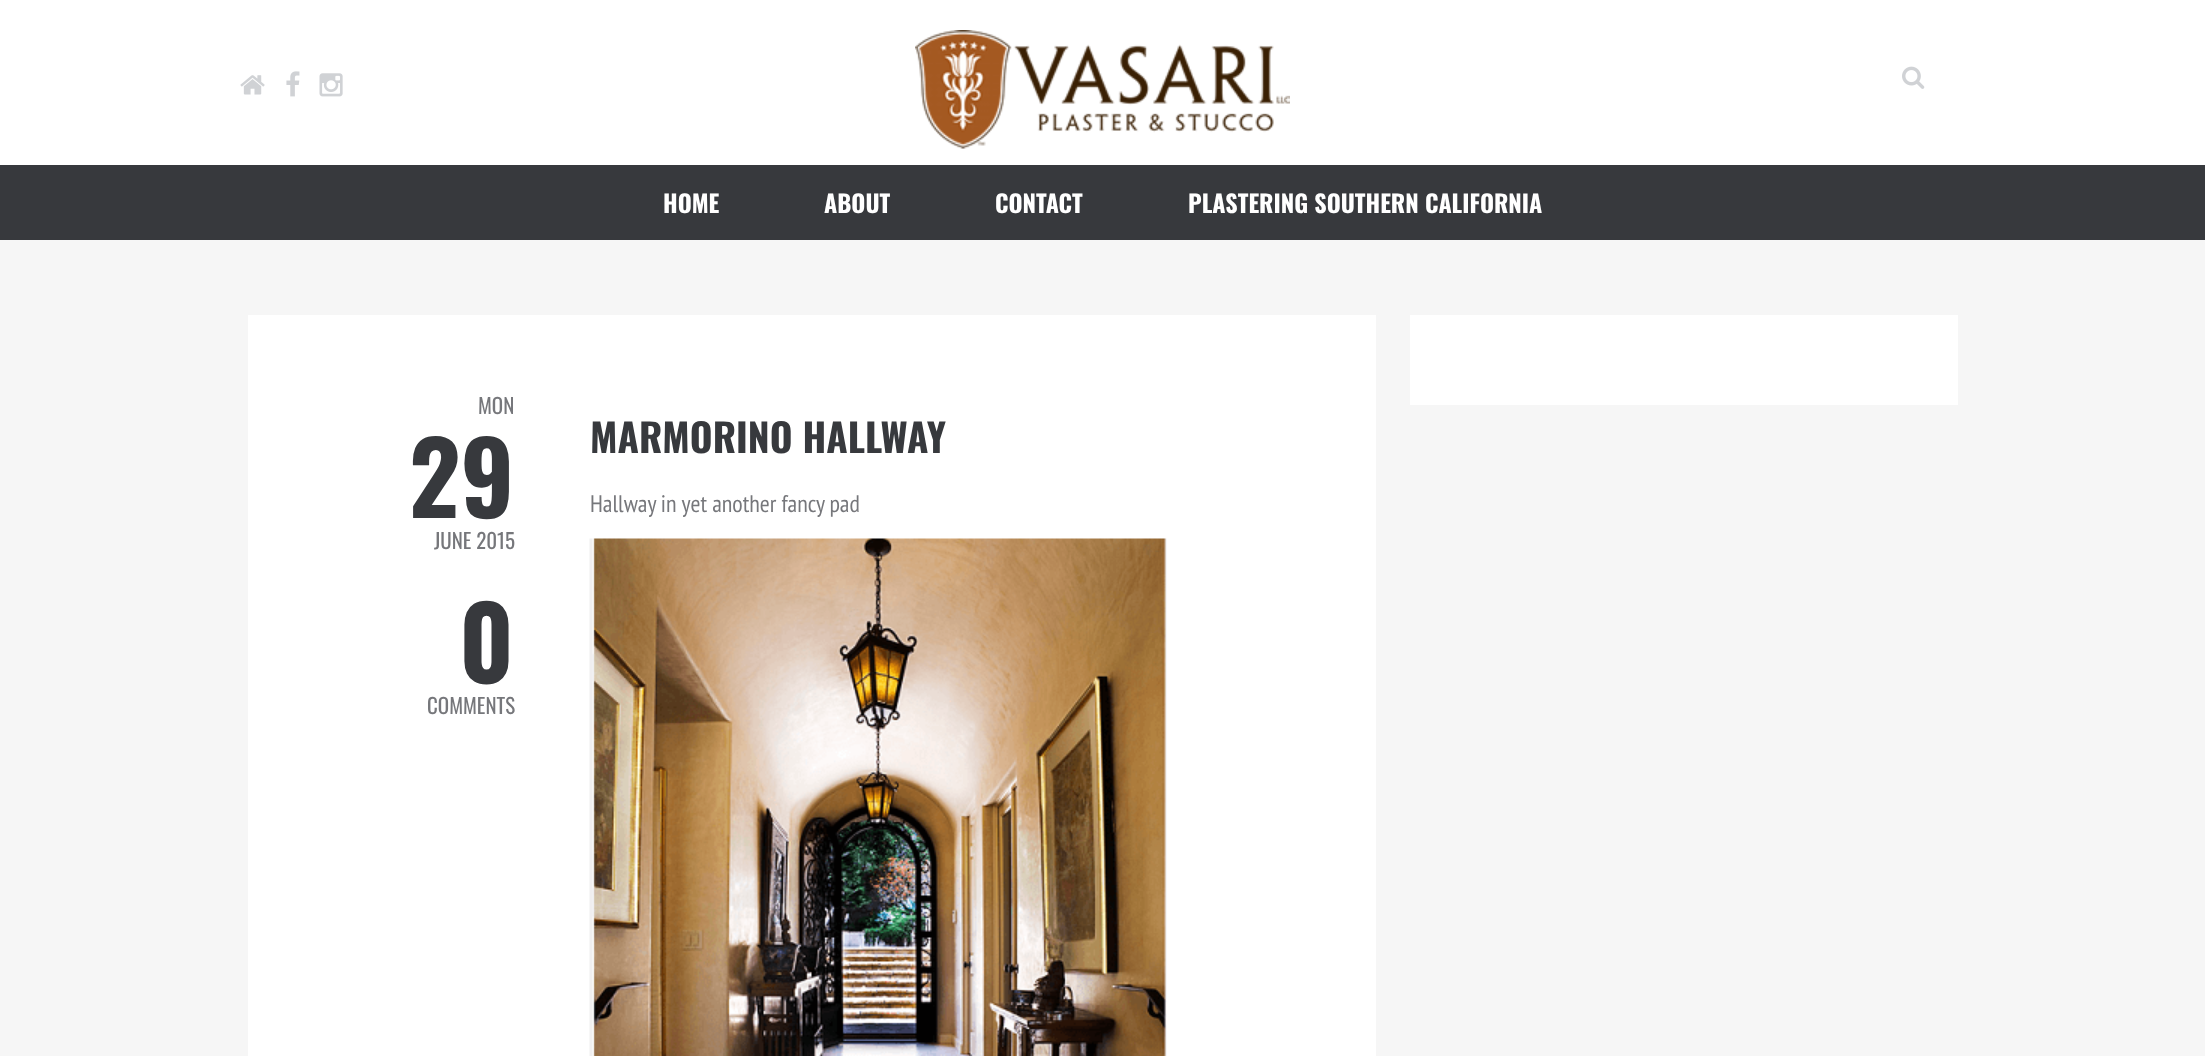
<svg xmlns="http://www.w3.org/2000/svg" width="2205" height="1056">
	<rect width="100%" height="100%" fill="#FFFFFF" />
	<image x="240" y="75" width="25" height="20" href="assets/img1.png" />
	<image x="286" y="71" width="14" height="26" href="assets/img2.png" />
	<image x="319" y="73" width="24" height="24" href="assets/img3.png" />
	<image x="915" y="30" width="375" height="119" href="assets/img4.png" />
	<image x="1902" y="66" width="23" height="23" href="assets/img5.png" />
	<rect x="0" y="165" width="2205" height="75" fill="#37393D" />
	<g font-family="Oswald" font-size="24" font-weight="700" fill="#FFFFFF">
		<text x="663" y="213">HOME</text>
		<text x="824" y="213">ABOUT</text>
		<text x="995" y="213">CONTACT</text>
		<text x="1188" y="213">PLASTERING SOUTHERN CALIFORNIA</text>
	</g>
	<rect x="0" y="240" width="2205" height="816" fill="#F6F6F6" />
	<rect x="1410" y="315" width="548" height="90" fill="#FFFFFF" />
	<rect x="248" y="315" width="1128" height="741" fill="#FFFFFF" />
	<text x="478" y="414" font-family="Oswald" font-size="21" fill="#76777B">MON</text>
	<text x="409" y="518" font-family="Oswald" font-size="100" font-weight="700" fill="#37393D">29</text>
	<text x="434" y="549" font-family="Oswald" font-size="21" fill="#76777B">JUNE 2015</text>
	<text x="459" y="683" font-family="Oswald" font-size="100" font-weight="700" fill="#37393D">0</text>
	<text x="427" y="714" font-family="Oswald" font-size="21" fill="#76777B">COMMENTS</text>
	<text x="590" y="453" font-family="Oswald" font-size="39" font-weight="700" fill="#37393D">MARMORINO HALLWAY</text>
	<text x="590" y="512" font-family="PT Sans Narrow" font-size="24" fill="#76777B">Hallway in yet another fancy pad</text>
	<image x="589" y="538" width="578" height="518" href="assets/img6.png" />
</svg>
